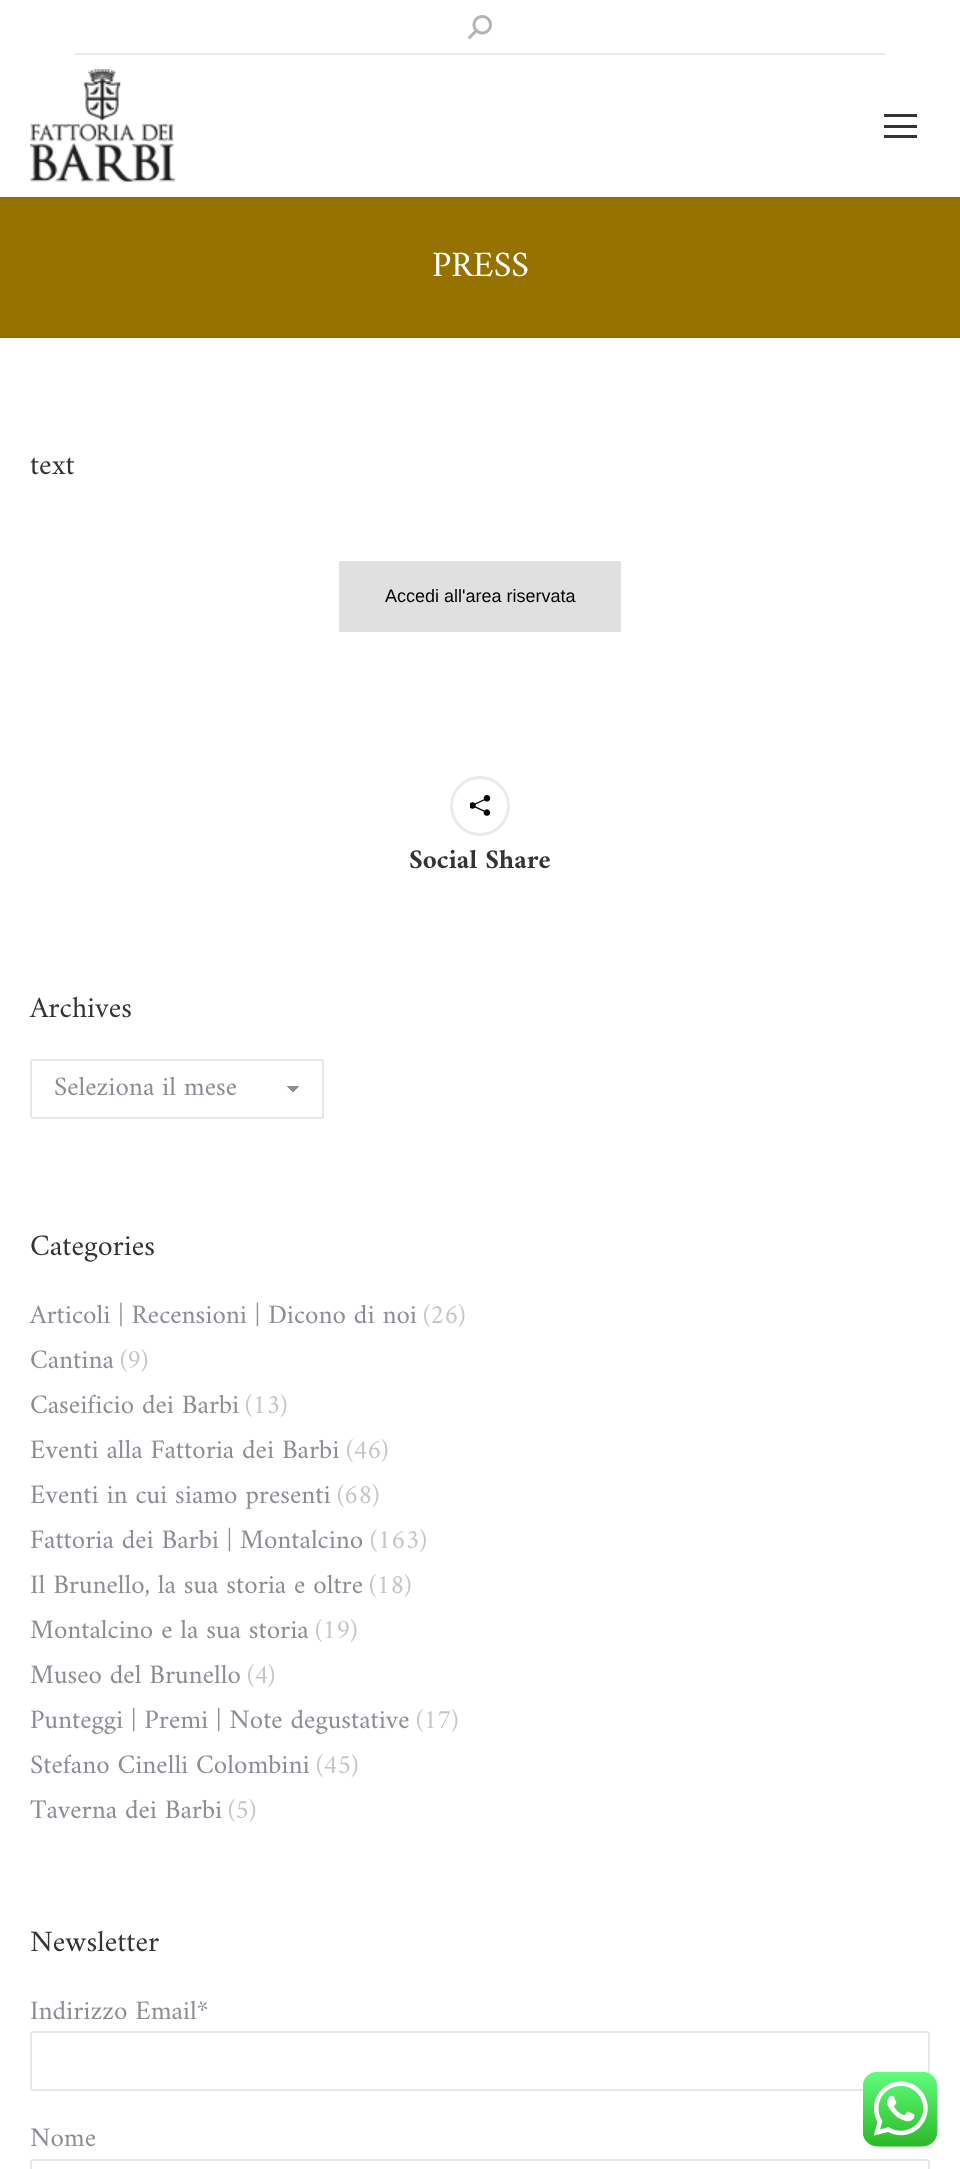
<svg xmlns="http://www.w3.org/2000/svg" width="960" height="2169">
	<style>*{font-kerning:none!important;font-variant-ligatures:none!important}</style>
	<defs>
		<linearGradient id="g1" gradientUnits="userSpaceOnUse" x1="293" y1="1085" x2="300" y2="1093"><stop offset="0.5" stop-color="#8B8D94" /><stop offset="0.5" stop-color="#FDFDFD" /></linearGradient>
		<linearGradient id="g2" gradientUnits="userSpaceOnUse" x1="285" y1="1093" x2="293" y2="1085"><stop offset="0.5" stop-color="#FDFDFD" /><stop offset="0.5" stop-color="#8B8D94" /></linearGradient>
	</defs>
	<rect width="100%" height="100%" fill="#FFFFFF" />
	<image x="468" y="15" width="24" height="24" href="assets/img1.png" />
	<rect x="75" y="53" width="810" height="2" fill="#E9E9E9" />
	<image x="30" y="69" width="146" height="113" href="assets/img2.png" />
	<rect x="884" y="114" width="33" height="3" fill="#333333" />
	<rect x="884" y="125" width="33" height="3" fill="#333333" />
	<rect x="884" y="135" width="33" height="3" fill="#333333" />
	<rect x="0" y="198" width="960" height="138" fill="#957100" />
	<rect x="0" y="197" width="960" height="1" fill="#8E6D03" />
	<text x="432" y="276" font-family="Amiri" font-size="36" fill="#FFFFFF">PRESS</text>
	<rect x="0" y="336" width="960" height="2" fill="#8E6D03" />
	<text x="30" y="474" font-family="Amiri" font-size="30" fill="#333333">text</text>
	<rect x="339" y="561" width="282" height="71" fill="#E0E0E0" />
	<text x="385" y="602" font-family="Liberation Sans" font-size="18" fill="#000000">Accedi all'area riservata</text>
	<circle cx="480" cy="806" r="28.5" fill="none" stroke="#EBEBEB" stroke-width="3" />
	<image x="470" y="795" width="21" height="21" href="assets/img3.png" />
	<text x="409" y="868" font-family="Amiri" font-size="27" font-weight="700" fill="#333333">Social Share</text>
	<text x="30" y="1017" font-family="Amiri" font-size="30" fill="#333333">Archives</text>
	<rect x="293" y="1086" width="6" height="8" fill="url(#g1)" />
	<rect x="285" y="1086" width="8" height="7" fill="url(#g2)" />
	<rect x="31" y="1060" width="292" height="58" rx="2" fill="none" stroke="#E7E7E7" stroke-width="2" />
	<text x="54" y="1095" font-family="Amiri" font-size="27" fill="#8B8D94">Seleziona il mese</text>
	<text x="30" y="1255" font-family="Amiri" font-size="30" fill="#333333">Categories</text>
	<text x="30" y="1323" font-family="Amiri" font-size="27" fill="#8B8D94">Articoli | Recensioni | Dicono di noi</text>
	<text x="423" y="1323" font-family="Amiri" font-size="27" fill="#C5C6CA">(26)</text>
	<text x="30" y="1368" font-family="Amiri" font-size="27" fill="#8B8D94">Cantina</text>
	<text x="120" y="1368" font-family="Amiri" font-size="27" fill="#C5C6CA">(9)</text>
	<text x="30" y="1413" font-family="Amiri" font-size="27" fill="#8B8D94">Caseificio dei Barbi</text>
	<text x="245" y="1413" font-family="Amiri" font-size="27" fill="#C5C6CA">(13)</text>
	<text x="30" y="1458" font-family="Amiri" font-size="27" fill="#8B8D94">Eventi alla Fattoria dei Barbi</text>
	<text x="346" y="1458" font-family="Amiri" font-size="27" fill="#C5C6CA">(46)</text>
	<text x="30" y="1503" font-family="Amiri" font-size="27" fill="#8B8D94">Eventi in cui siamo presenti</text>
	<text x="337" y="1503" font-family="Amiri" font-size="27" fill="#C5C6CA">(68)</text>
	<text x="30" y="1548" font-family="Amiri" font-size="27" fill="#8B8D94">Fattoria dei Barbi | Montalcino</text>
	<text x="370" y="1548" font-family="Amiri" font-size="27" fill="#C5C6CA">(163)</text>
	<text x="30" y="1593" font-family="Amiri" font-size="27" fill="#8B8D94">Il Brunello, la sua storia e oltre</text>
	<text x="369" y="1593" font-family="Amiri" font-size="27" fill="#C5C6CA">(18)</text>
	<text x="30" y="1638" font-family="Amiri" font-size="27" fill="#8B8D94">Montalcino e la sua storia</text>
	<text x="315" y="1638" font-family="Amiri" font-size="27" fill="#C5C6CA">(19)</text>
	<text x="30" y="1683" font-family="Amiri" font-size="27" fill="#8B8D94">Museo del Brunello</text>
	<text x="247" y="1683" font-family="Amiri" font-size="27" fill="#C5C6CA">(4)</text>
	<text x="30" y="1728" font-family="Amiri" font-size="27" fill="#8B8D94">Punteggi | Premi | Note degustative</text>
	<text x="416" y="1728" font-family="Amiri" font-size="27" fill="#C5C6CA">(17)</text>
	<text x="30" y="1773" font-family="Amiri" font-size="27" fill="#8B8D94">Stefano Cinelli Colombini</text>
	<text x="316" y="1773" font-family="Amiri" font-size="27" fill="#C5C6CA">(45)</text>
	<text x="30" y="1818" font-family="Amiri" font-size="27" fill="#8B8D94">Taverna dei Barbi</text>
	<text x="228" y="1818" font-family="Amiri" font-size="27" fill="#C5C6CA">(5)</text>
	<text x="30" y="1951" font-family="Amiri" font-size="30" fill="#333333">Newsletter</text>
	<text x="30" y="2019" font-family="Amiri" font-size="27" fill="#8B8D94">Indirizzo Email*</text>
	<rect x="31" y="2032" width="898" height="58" rx="2" fill="none" stroke="#E7E7E7" stroke-width="2" />
	<text x="30" y="2146" font-family="Amiri" font-size="27" fill="#8B8D94">Nome</text>
	<rect x="31" y="2160" width="898" height="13" rx="2" fill="none" stroke="#E7E7E7" stroke-width="2" />
	<image x="863" y="2072" width="75" height="75" href="assets/img4.png" />
</svg>
